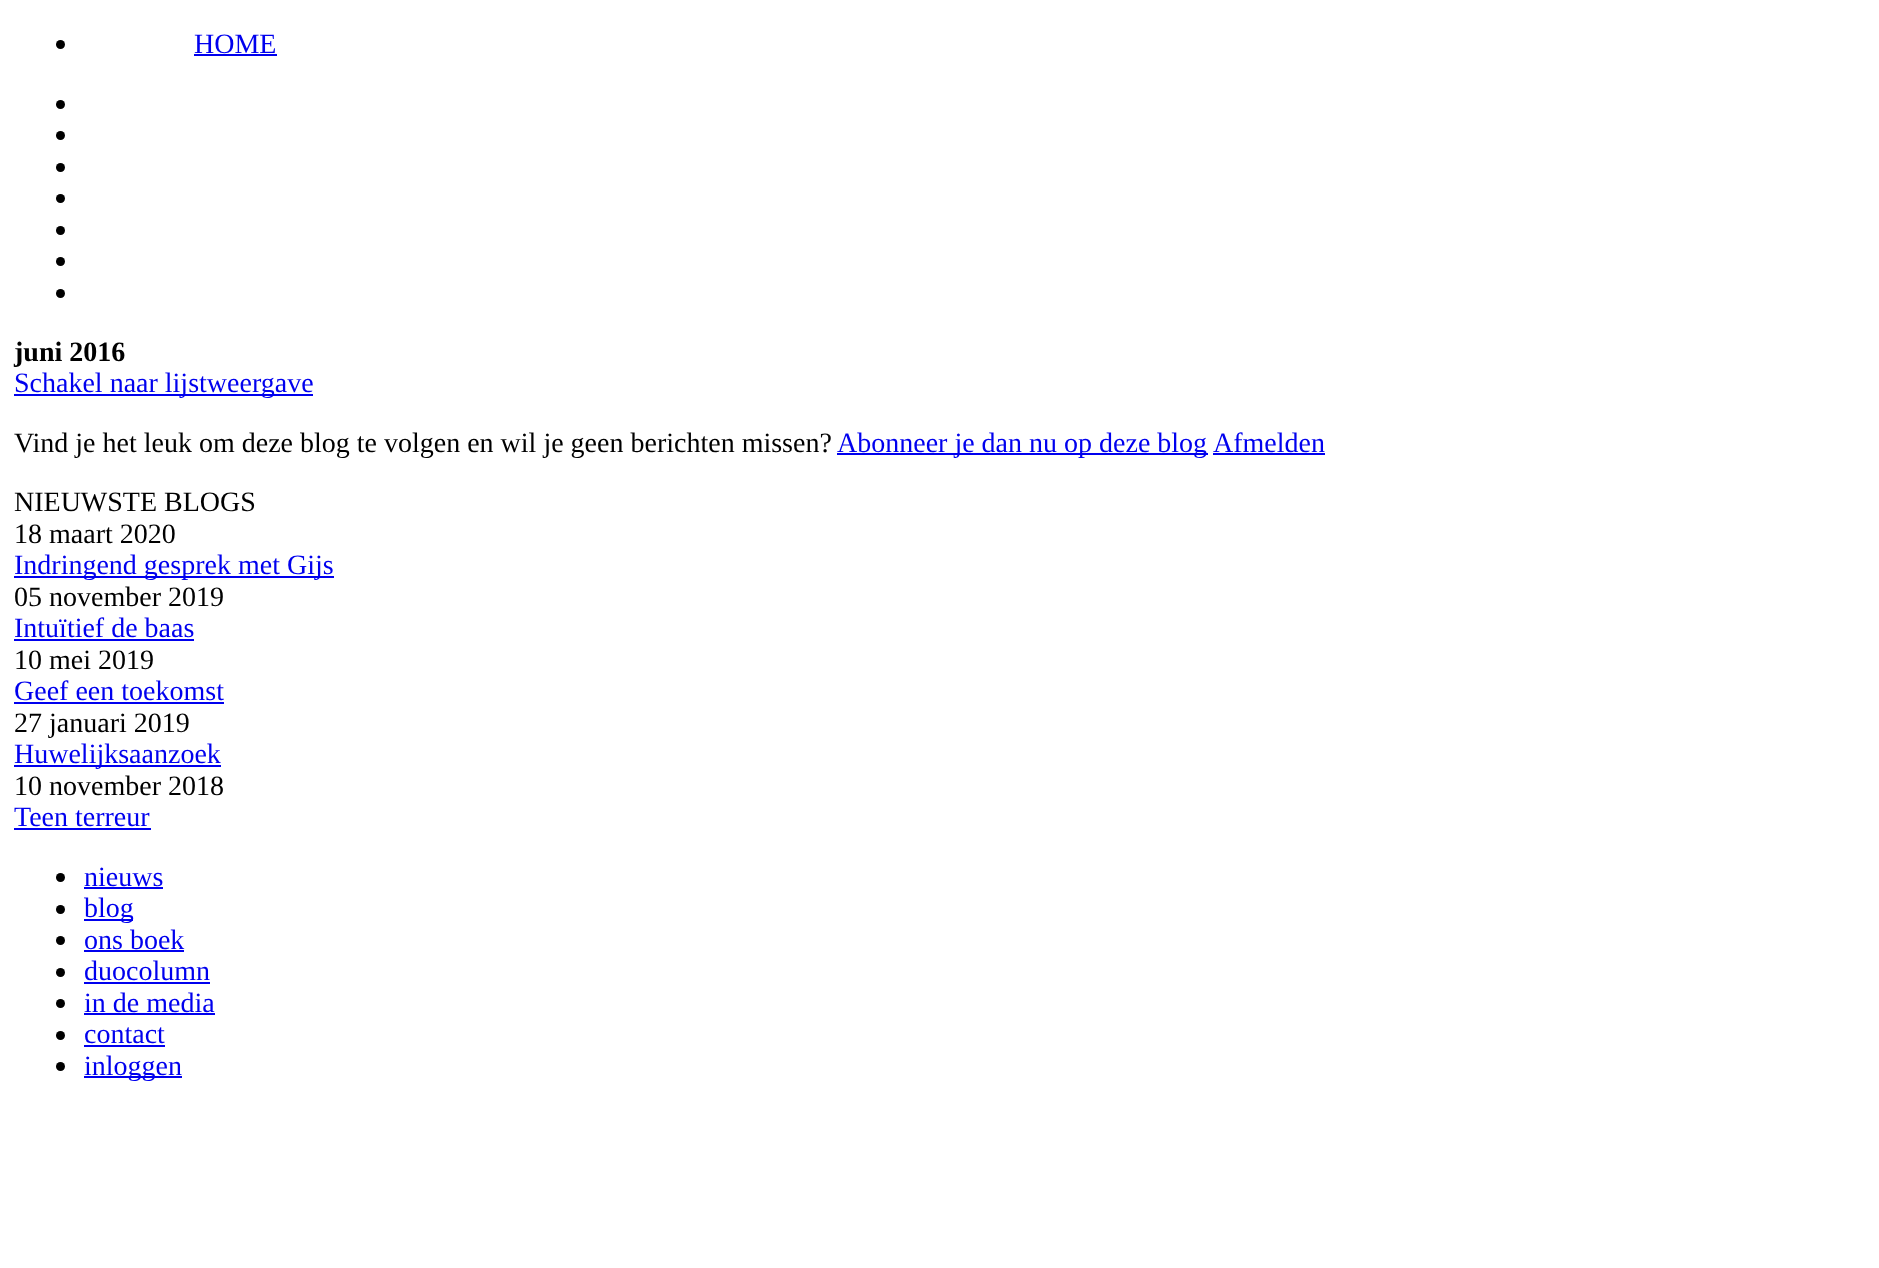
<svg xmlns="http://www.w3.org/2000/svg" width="1879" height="1268">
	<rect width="100%" height="100%" fill="#FFFFFF" />
	<circle cx="60.5" cy="44.5" r="4.5" fill="#000000" />
	<text x="194" y="53" font-family="Liberation Serif" font-size="28" fill="#0000EE">HOME</text>
	<rect x="194" y="54" width="83" height="2" fill="#0000EE" />
	<circle cx="60.5" cy="104.5" r="4.5" fill="#000000" />
	<circle cx="60.5" cy="135.5" r="4.5" fill="#000000" />
	<circle cx="60.5" cy="167.5" r="4.5" fill="#000000" />
	<circle cx="60.5" cy="198.5" r="4.5" fill="#000000" />
	<circle cx="60.5" cy="230.5" r="4.5" fill="#000000" />
	<circle cx="60.5" cy="261.5" r="4.5" fill="#000000" />
	<circle cx="60.5" cy="293.5" r="4.5" fill="#000000" />
	<text x="14" y="361" font-family="Liberation Serif" font-size="28" font-weight="700" fill="#000000">juni 2016</text>
	<rect x="14" y="394" width="299" height="2" fill="#0000EE" />
	<text x="14" y="392" font-family="Liberation Serif" font-size="28" fill="#0000EE">Schakel naar lijstweergave</text>
	<text x="14" y="452" font-family="Liberation Serif" font-size="28" fill="#000000">Vind je het leuk om deze blog te volgen en wil je geen berichten missen?</text>
	<rect x="837" y="453" width="371" height="2" fill="#0000EE" />
	<g font-family="Liberation Serif" font-size="28" fill="#0000EE">
		<text x="837" y="452">Abonneer je dan nu op deze blog</text>
		<text x="1213" y="452">Afmelden</text>
	</g>
	<rect x="1213" y="453" width="112" height="2" fill="#0000EE" />
	<g font-family="Liberation Serif" font-size="28" fill="#000000">
		<text x="14" y="511">NIEUWSTE BLOGS</text>
		<text x="14" y="543">18 maart 2020</text>
	</g>
	<rect x="14" y="576" width="320" height="2" fill="#0000EE" />
	<text x="14" y="574" font-family="Liberation Serif" font-size="28" fill="#0000EE">Indringend gesprek met Gijs</text>
	<text x="14" y="606" font-family="Liberation Serif" font-size="28" fill="#000000">05 november 2019</text>
	<text x="14" y="637" font-family="Liberation Serif" font-size="28" fill="#0000EE">Intuïtief de baas</text>
	<rect x="14" y="639" width="180" height="2" fill="#0000EE" />
	<text x="14" y="669" font-family="Liberation Serif" font-size="28" fill="#000000">10 mei 2019</text>
	<text x="14" y="700" font-family="Liberation Serif" font-size="28" fill="#0000EE">Geef een toekomst</text>
	<rect x="14" y="702" width="210" height="2" fill="#0000EE" />
	<text x="14" y="732" font-family="Liberation Serif" font-size="28" fill="#000000">27 januari 2019</text>
	<rect x="14" y="765" width="207" height="2" fill="#0000EE" />
	<text x="14" y="763" font-family="Liberation Serif" font-size="28" fill="#0000EE">Huwelijksaanzoek</text>
	<text x="14" y="795" font-family="Liberation Serif" font-size="28" fill="#000000">10 november 2018</text>
	<text x="14" y="826" font-family="Liberation Serif" font-size="28" fill="#0000EE">Teen terreur</text>
	<rect x="14" y="828" width="137" height="2" fill="#0000EE" />
	<circle cx="60.5" cy="877.5" r="4.5" fill="#000000" />
	<text x="84" y="886" font-family="Liberation Serif" font-size="28" fill="#0000EE">nieuws</text>
	<rect x="84" y="887" width="79" height="2" fill="#0000EE" />
	<circle cx="60.5" cy="909.5" r="4.5" fill="#000000" />
	<rect x="84" y="919" width="49" height="2" fill="#0000EE" />
	<text x="84" y="917" font-family="Liberation Serif" font-size="28" fill="#0000EE">blog</text>
	<circle cx="60.5" cy="940.5" r="4.5" fill="#000000" />
	<text x="84" y="949" font-family="Liberation Serif" font-size="28" fill="#0000EE">ons boek</text>
	<rect x="84" y="950" width="100" height="2" fill="#0000EE" />
	<circle cx="60.5" cy="972.5" r="4.5" fill="#000000" />
	<text x="84" y="980" font-family="Liberation Serif" font-size="28" fill="#0000EE">duocolumn</text>
	<rect x="84" y="982" width="126" height="2" fill="#0000EE" />
	<circle cx="60.5" cy="1003.5" r="4.5" fill="#000000" />
	<text x="84" y="1012" font-family="Liberation Serif" font-size="28" fill="#0000EE">in de media</text>
	<rect x="84" y="1013" width="131" height="2" fill="#0000EE" />
	<circle cx="60.5" cy="1035.5" r="4.5" fill="#000000" />
	<text x="84" y="1043" font-family="Liberation Serif" font-size="28" fill="#0000EE">contact</text>
	<rect x="84" y="1045" width="81" height="2" fill="#0000EE" />
	<circle cx="60.5" cy="1066.5" r="4.5" fill="#000000" />
	<rect x="84" y="1076" width="98" height="2" fill="#0000EE" />
	<text x="84" y="1075" font-family="Liberation Serif" font-size="28" fill="#0000EE">inloggen</text>
</svg>
